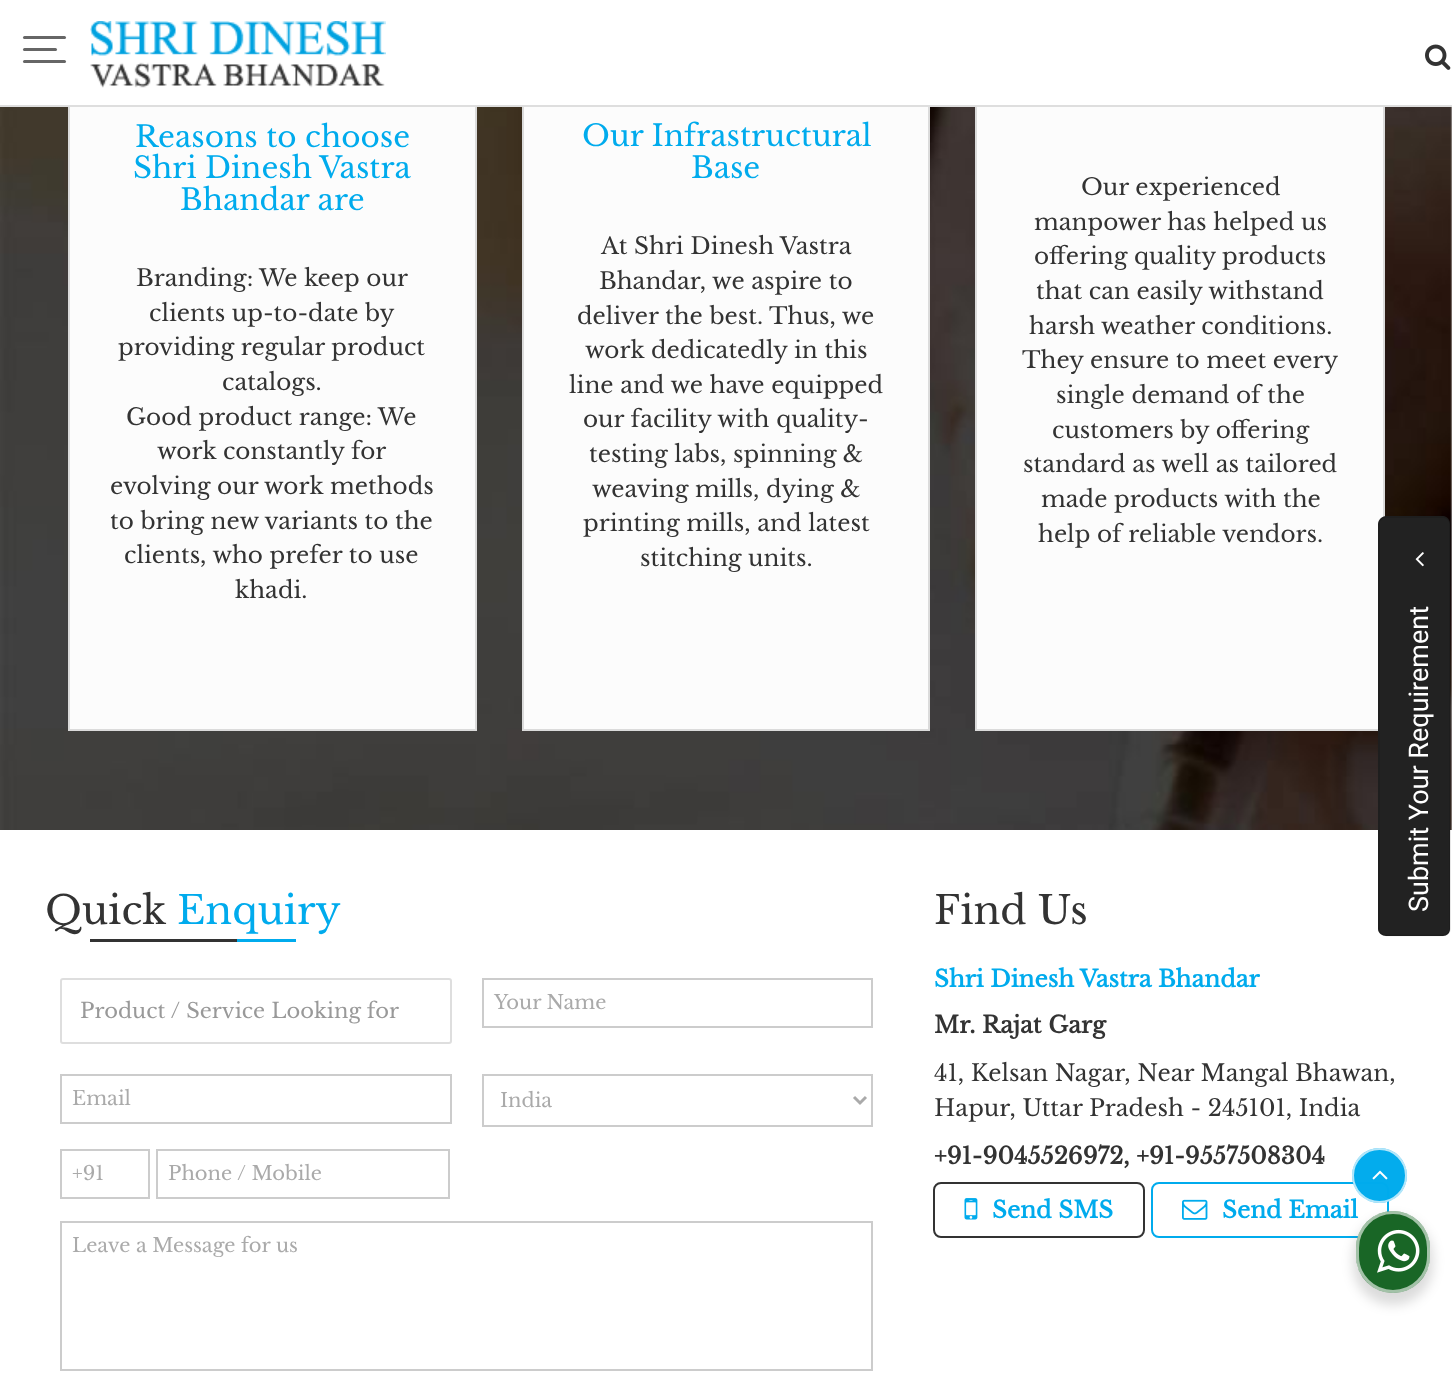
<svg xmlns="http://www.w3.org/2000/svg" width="1452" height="1386">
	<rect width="100%" height="100%" fill="#FFFFFF" />
	<rect x="1450" y="107" width="2" height="723" fill="#F3F3F3" />
	<image x="0" y="107" width="1452" height="723" href="assets/img3.png" />
	<rect x="70" y="107" width="405" height="622" fill="#FCFCFC" />
	<rect x="69" y="-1" width="407" height="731" fill="none" stroke="#DBDBDB" stroke-width="2" />
	<rect x="524" y="107" width="404" height="622" fill="#FCFCFC" />
	<rect x="523" y="-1" width="406" height="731" fill="none" stroke="#DBDBDB" stroke-width="2" />
	<rect x="977" y="107" width="406" height="622" fill="#FCFCFC" />
	<rect x="976" y="-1" width="408" height="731" fill="none" stroke="#DBDBDB" stroke-width="2" />
	<rect x="68" y="0" width="1317" height="105" fill="#FFFFFF" />
	<rect x="0" y="105" width="1452" height="2" fill="#DEDEDE" />
	<image x="90" y="21" width="296" height="67" href="assets/img1.png" />
	<rect x="23" y="36" width="43" height="3" rx="1.5" fill="#666666" />
	<rect x="23" y="48" width="34" height="3" rx="1.5" fill="#666666" />
	<rect x="23" y="60" width="43" height="3" rx="1.5" fill="#666666" />
	<image x="1425" y="44" width="26" height="26" href="assets/img2.png" />
	<g font-family="Libre Baskerville" font-size="29.5" fill="#00ABED">
		<text x="135" y="147">Reasons to choose</text>
		<text x="133" y="178">Shri Dinesh Vastra</text>
		<text x="180" y="210">Bhandar are</text>
	</g>
	<g font-family="Libre Baskerville" font-size="23.1" fill="#333333">
		<text x="136" y="286">Branding: We keep our</text>
		<text x="149" y="321">clients up-to-date by</text>
		<text x="118" y="355">providing regular product</text>
		<text x="222" y="390">catalogs.</text>
		<text x="126" y="425">Good product range: We</text>
		<text x="157" y="459">work constantly for</text>
		<text x="110" y="494">evolving our work methods</text>
		<text x="110" y="529">to bring new variants to the</text>
		<text x="124" y="563">clients, who prefer to use</text>
		<text x="235" y="598">khadi.</text>
	</g>
	<g font-family="Libre Baskerville" font-size="29.5" fill="#00ABED">
		<text x="582" y="146">Our Infrastructural</text>
		<text x="691" y="178">Base</text>
	</g>
	<g font-family="Libre Baskerville" font-size="23.1" fill="#333333">
		<text x="601" y="254">At Shri Dinesh Vastra</text>
		<text x="599" y="289">Bhandar, we aspire to</text>
		<text x="577" y="324">deliver the best. Thus, we</text>
		<text x="585" y="358">work dedicatedly in this</text>
		<text x="569" y="393">line and we have equipped</text>
		<text x="583" y="427">our facility with quality-</text>
		<text x="589" y="462">testing labs, spinning &amp;</text>
		<text x="592" y="497">weaving mills, dying &amp;</text>
		<text x="583" y="531">printing mills, and latest</text>
		<text x="640" y="566">stitching units.</text>
		<text x="1081" y="195">Our experienced</text>
		<text x="1034" y="230">manpower has helped us</text>
		<text x="1034" y="264">offering quality products</text>
		<text x="1036" y="299">that can easily withstand</text>
		<text x="1029" y="334">harsh weather conditions.</text>
		<text x="1022" y="368">They ensure to meet every</text>
		<text x="1056" y="403">single demand of the</text>
		<text x="1052" y="438">customers by offering</text>
		<text x="1023" y="472">standard as well as tailored</text>
		<text x="1041" y="507">made products with the</text>
		<text x="1038" y="542">help of reliable vendors.</text>
	</g>
	<text x="45" y="924" font-family="Libre Baskerville" font-size="39" fill="#333333">Quick</text>
	<text x="177" y="924" font-family="Libre Baskerville" font-size="39" fill="#00ABED">Enquiry</text>
	<rect x="90" y="939" width="147" height="3" fill="#333333" />
	<rect x="237" y="939" width="59" height="3" fill="#00ABED" />
	<rect x="61" y="979" width="390" height="64" rx="2" fill="none" stroke="#DEDEDE" stroke-width="2" />
	<text x="80" y="1018" font-family="Libre Baskerville" font-size="21" fill="#999999">Product / Service Looking for</text>
	<rect x="483" y="979" width="389" height="48" fill="none" stroke="#CCCCCC" stroke-width="2" />
	<text x="494" y="1009" font-family="Libre Baskerville" font-size="19.5" fill="#AAAAAA">Your Name</text>
	<rect x="61" y="1075" width="390" height="48" fill="none" stroke="#CCCCCC" stroke-width="2" />
	<text x="72" y="1105" font-family="Libre Baskerville" font-size="19.5" fill="#AAAAAA">Email</text>
	<rect x="483" y="1075" width="389" height="51" fill="none" stroke="#CCCCCC" stroke-width="2" />
	<path d="M854 1097L860 1103L866 1097" fill="none" stroke="#AAAAAA" stroke-width="3" />
	<text x="500" y="1107" font-family="Libre Baskerville" font-size="19.5" fill="#AAAAAA">India</text>
	<rect x="61" y="1150" width="88" height="48" fill="none" stroke="#CCCCCC" stroke-width="2" />
	<text x="72" y="1180" font-family="Libre Baskerville" font-size="19.5" fill="#AAAAAA">+91</text>
	<rect x="157" y="1150" width="292" height="48" fill="none" stroke="#CCCCCC" stroke-width="2" />
	<text x="168" y="1180" font-family="Libre Baskerville" font-size="19.5" fill="#AAAAAA">Phone / Mobile</text>
	<rect x="61" y="1222" width="811" height="148" fill="none" stroke="#CCCCCC" stroke-width="2" />
	<text x="72" y="1252" font-family="Libre Baskerville" font-size="19.5" fill="#AAAAAA">Leave a Message for us</text>
	<text x="934" y="924" font-family="Libre Baskerville" font-size="39" fill="#333333">Find Us</text>
	<text x="934" y="987" font-family="Libre Baskerville" font-size="23.1" font-weight="700" fill="#00ABED">Shri Dinesh Vastra Bhandar</text>
	<text x="934" y="1033" font-family="Libre Baskerville" font-size="23.1" font-weight="700" fill="#333333">Mr. Rajat Garg</text>
	<g font-family="Libre Baskerville" font-size="23.1" fill="#333333">
		<text x="934" y="1081">41, Kelsan Nagar, Near Mangal Bhawan,</text>
		<text x="934" y="1116">Hapur, Uttar Pradesh - 245101, India</text>
	</g>
	<text x="934" y="1164" font-family="Libre Baskerville" font-size="23.1" font-weight="700" fill="#333333">+91-9045526972, +91-9557508304</text>
	<rect x="934" y="1183" width="210" height="54" rx="7" fill="none" stroke="#333333" stroke-width="2" />
	<image x="964" y="1198" width="14" height="22" href="assets/img4.png" />
	<text x="992" y="1218" font-family="Libre Baskerville" font-size="23.1" font-weight="700" fill="#00ABED">Send SMS</text>
	<rect x="1152" y="1183" width="236" height="54" rx="7" fill="none" stroke="#00ABED" stroke-width="2" />
	<image x="1182" y="1199" width="26" height="21" href="assets/img5.png" />
	<text x="1222" y="1218" font-family="Libre Baskerville" font-size="23.1" font-weight="700" fill="#00ABED">Send Email</text>
	<path d="M1378 929V524C1378 520 1382 516 1386 516H1443C1447 516 1450 520 1450 524V929C1450 933 1447 936 1443 936H1386C1382 936 1378 933 1378 929Z" fill="#222222" />
	<path d="M1379 929V524C1379 520 1382.5 517 1386 517H1443C1446.5 517 1450 520 1450 524V929C1450 932.5 1446.5 935.5 1443 935.5H1386C1382.5 935.5 1379 932.5 1379 929Z" fill="none" stroke="#000000" stroke-opacity="0.13" stroke-width="1.5" />
	<image x="1415" y="552" width="9" height="15" href="assets/img6.png" />
	<text x="1428" y="912" transform="rotate(-90 1428 912)" font-family="Roboto" font-size="27" fill="#FFFFFF">Submit Your Requirement</text>
	<circle cx="1379.5" cy="1175.5" r="27.5" fill="#00ABED" fill-opacity="0.99" />
	<circle cx="1379.5" cy="1175.5" r="26.5" fill="none" stroke="#FFFFFF" stroke-opacity="0.7" stroke-width="2" />
	<image x="1372" y="1170" width="16" height="10" href="assets/img7.png" />
	<rect x="1353" y="1217" width="80" height="88" rx="40" fill="#000000" fill-opacity="0.14" filter="blur(6px)" />
	<rect x="1356" y="1211" width="74" height="82" rx="37" fill="#196626" />
	<rect x="1357.5" y="1212.5" width="71" height="79" rx="35.5" fill="none" stroke="#FFFFFF" stroke-opacity="0.6" stroke-width="3" />
	<image x="1377" y="1229" width="43" height="44" href="assets/img8.png" />
</svg>
